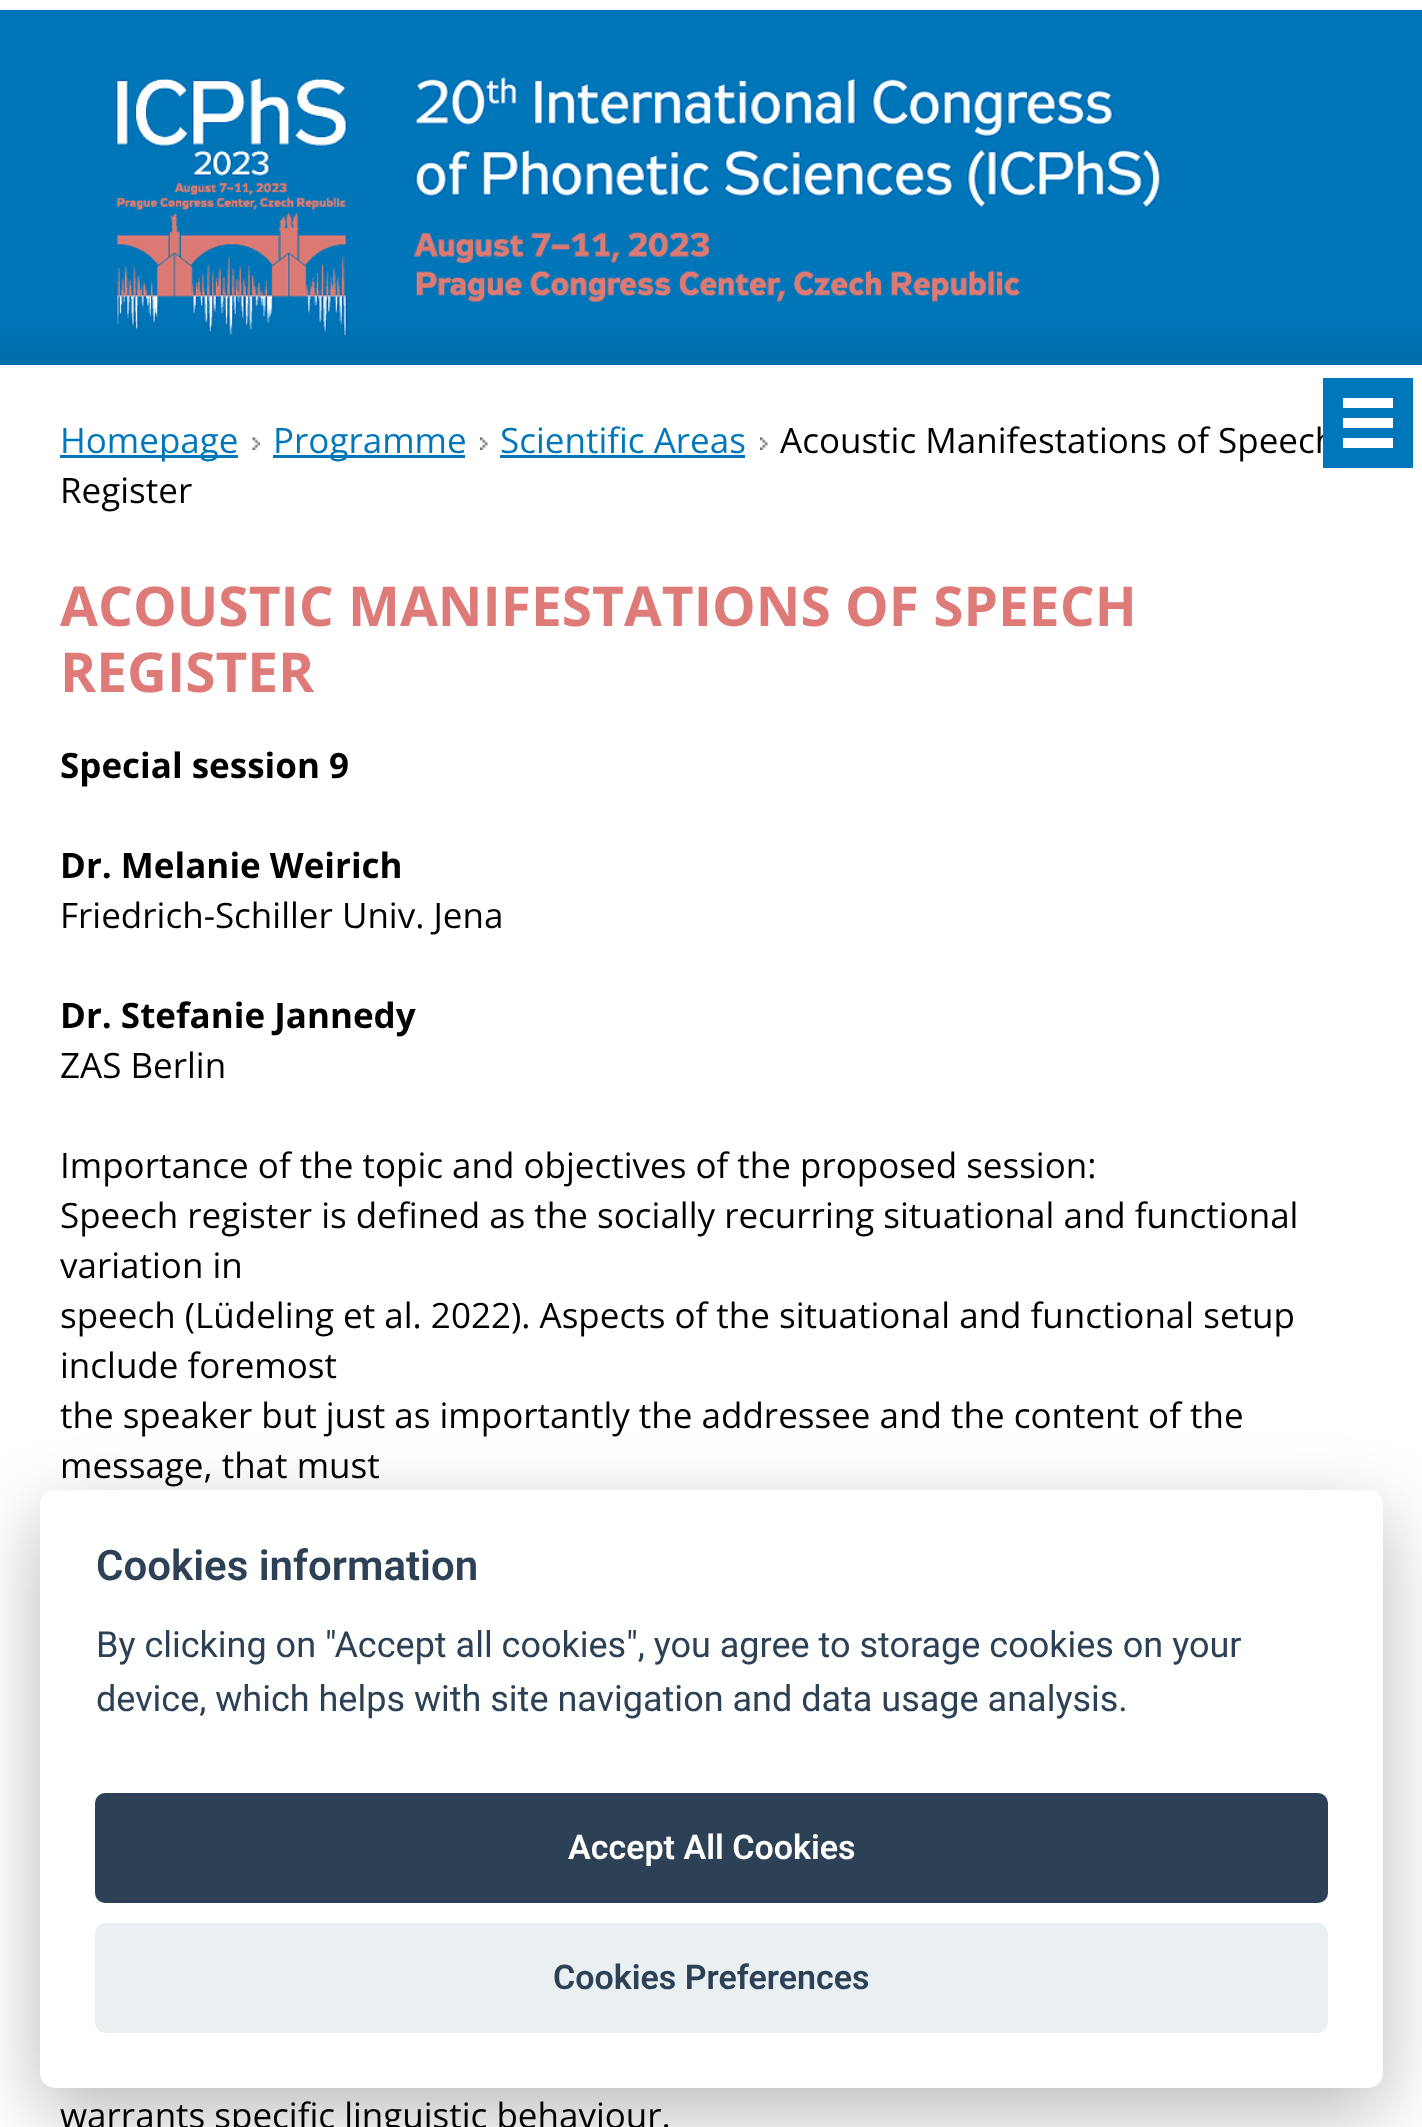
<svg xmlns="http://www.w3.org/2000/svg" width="1422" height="2127">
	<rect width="100%" height="100%" fill="#FFFFFF" />
	<image x="0" y="10" width="1422" height="355" href="assets/img1.png" />
	<rect x="60" y="455" width="178" height="3" fill="#0077BA" />
	<text x="60" y="453" font-family="Open Sans" font-size="35" fill="#0077BA">Homepage</text>
	<image x="252" y="437" width="8" height="13" href="assets/img2.png" />
	<rect x="273" y="455" width="192" height="3" fill="#0077BA" />
	<text x="273" y="453" font-family="Open Sans" font-size="35" fill="#0077BA">Programme</text>
	<image x="480" y="437" width="8" height="13" href="assets/img3.png" />
	<text x="500" y="453" font-family="Open Sans" font-size="35" fill="#0077BA">Scientific Areas</text>
	<rect x="500" y="455" width="245" height="3" fill="#0077BA" />
	<image x="760" y="437" width="8" height="13" href="assets/img3.png" />
	<g font-family="Open Sans" font-size="35" fill="#000000">
		<text x="780" y="453">Acoustic Manifestations of Speech</text>
		<text x="60" y="503">Register</text>
	</g>
	<g font-family="Open Sans" font-size="55" font-weight="700" fill="#DE7B78">
		<text x="60" y="626">ACOUSTIC MANIFESTATIONS OF SPEECH</text>
		<text x="60" y="692">REGISTER</text>
	</g>
	<g font-family="Open Sans" font-size="35" font-weight="700" fill="#000000">
		<text x="60" y="778">Special session 9</text>
		<text x="60" y="878">Dr. Melanie Weirich</text>
	</g>
	<text x="60" y="928" font-family="Open Sans" font-size="35" fill="#000000">Friedrich-Schiller Univ. Jena</text>
	<text x="60" y="1028" font-family="Open Sans" font-size="35" font-weight="700" fill="#000000">Dr. Stefanie Jannedy</text>
	<g font-family="Open Sans" font-size="35" fill="#000000">
		<text x="60" y="1078">ZAS Berlin</text>
		<text x="60" y="1178">Importance of the topic and objectives of the proposed session:</text>
		<text x="60" y="1228">Speech register is defined as the socially recurring situational and functional</text>
		<text x="60" y="1278">variation in</text>
		<text x="60" y="1328">speech (Lüdeling et al. 2022). Aspects of the situational and functional setup</text>
		<text x="60" y="1378">include foremost</text>
		<text x="60" y="1428">the speaker but just as importantly the addressee and the content of the</text>
		<text x="60" y="1478">message, that must</text>
		<text x="60" y="2128">warrants specific linguistic behaviour.</text>
	</g>
	<rect x="1323" y="378" width="90" height="90" fill="#0077BA" />
	<rect x="1343" y="398" width="50" height="10" fill="#FFFFFF" />
	<rect x="1343" y="438" width="50" height="10" fill="#FFFFFF" />
	<rect x="1343" y="418" width="50" height="10" fill="#FFFFFF" />
	<rect x="40" y="1515" width="1343" height="598" rx="15" fill="#020203" fill-opacity="0.28" filter="blur(37.5px)" />
	<rect x="40" y="1490" width="1343" height="598" rx="15" fill="#FFFFFF" />
	<text x="96" y="1580" font-family="Roboto" font-size="42" font-weight="600" fill="#2D4156">Cookies information</text>
	<g font-family="Roboto" font-size="36" fill="#2D4156">
		<text x="96" y="1657">By clicking on "Accept all cookies", you agree to storage cookies on your</text>
		<text x="96" y="1711">device, which helps with site navigation and data usage analysis.</text>
	</g>
	<rect x="95" y="1793" width="1233" height="110" rx="10" fill="#2D4156" />
	<text x="568" y="1859" font-family="Roboto" font-size="34" font-weight="600" fill="#FFFFFF">Accept All Cookies</text>
	<rect x="95" y="1923" width="1233" height="110" rx="10" fill="#EAEFF2" />
	<text x="553" y="1989" font-family="Roboto" font-size="34" font-weight="600" fill="#2D4156">Cookies Preferences</text>
</svg>
